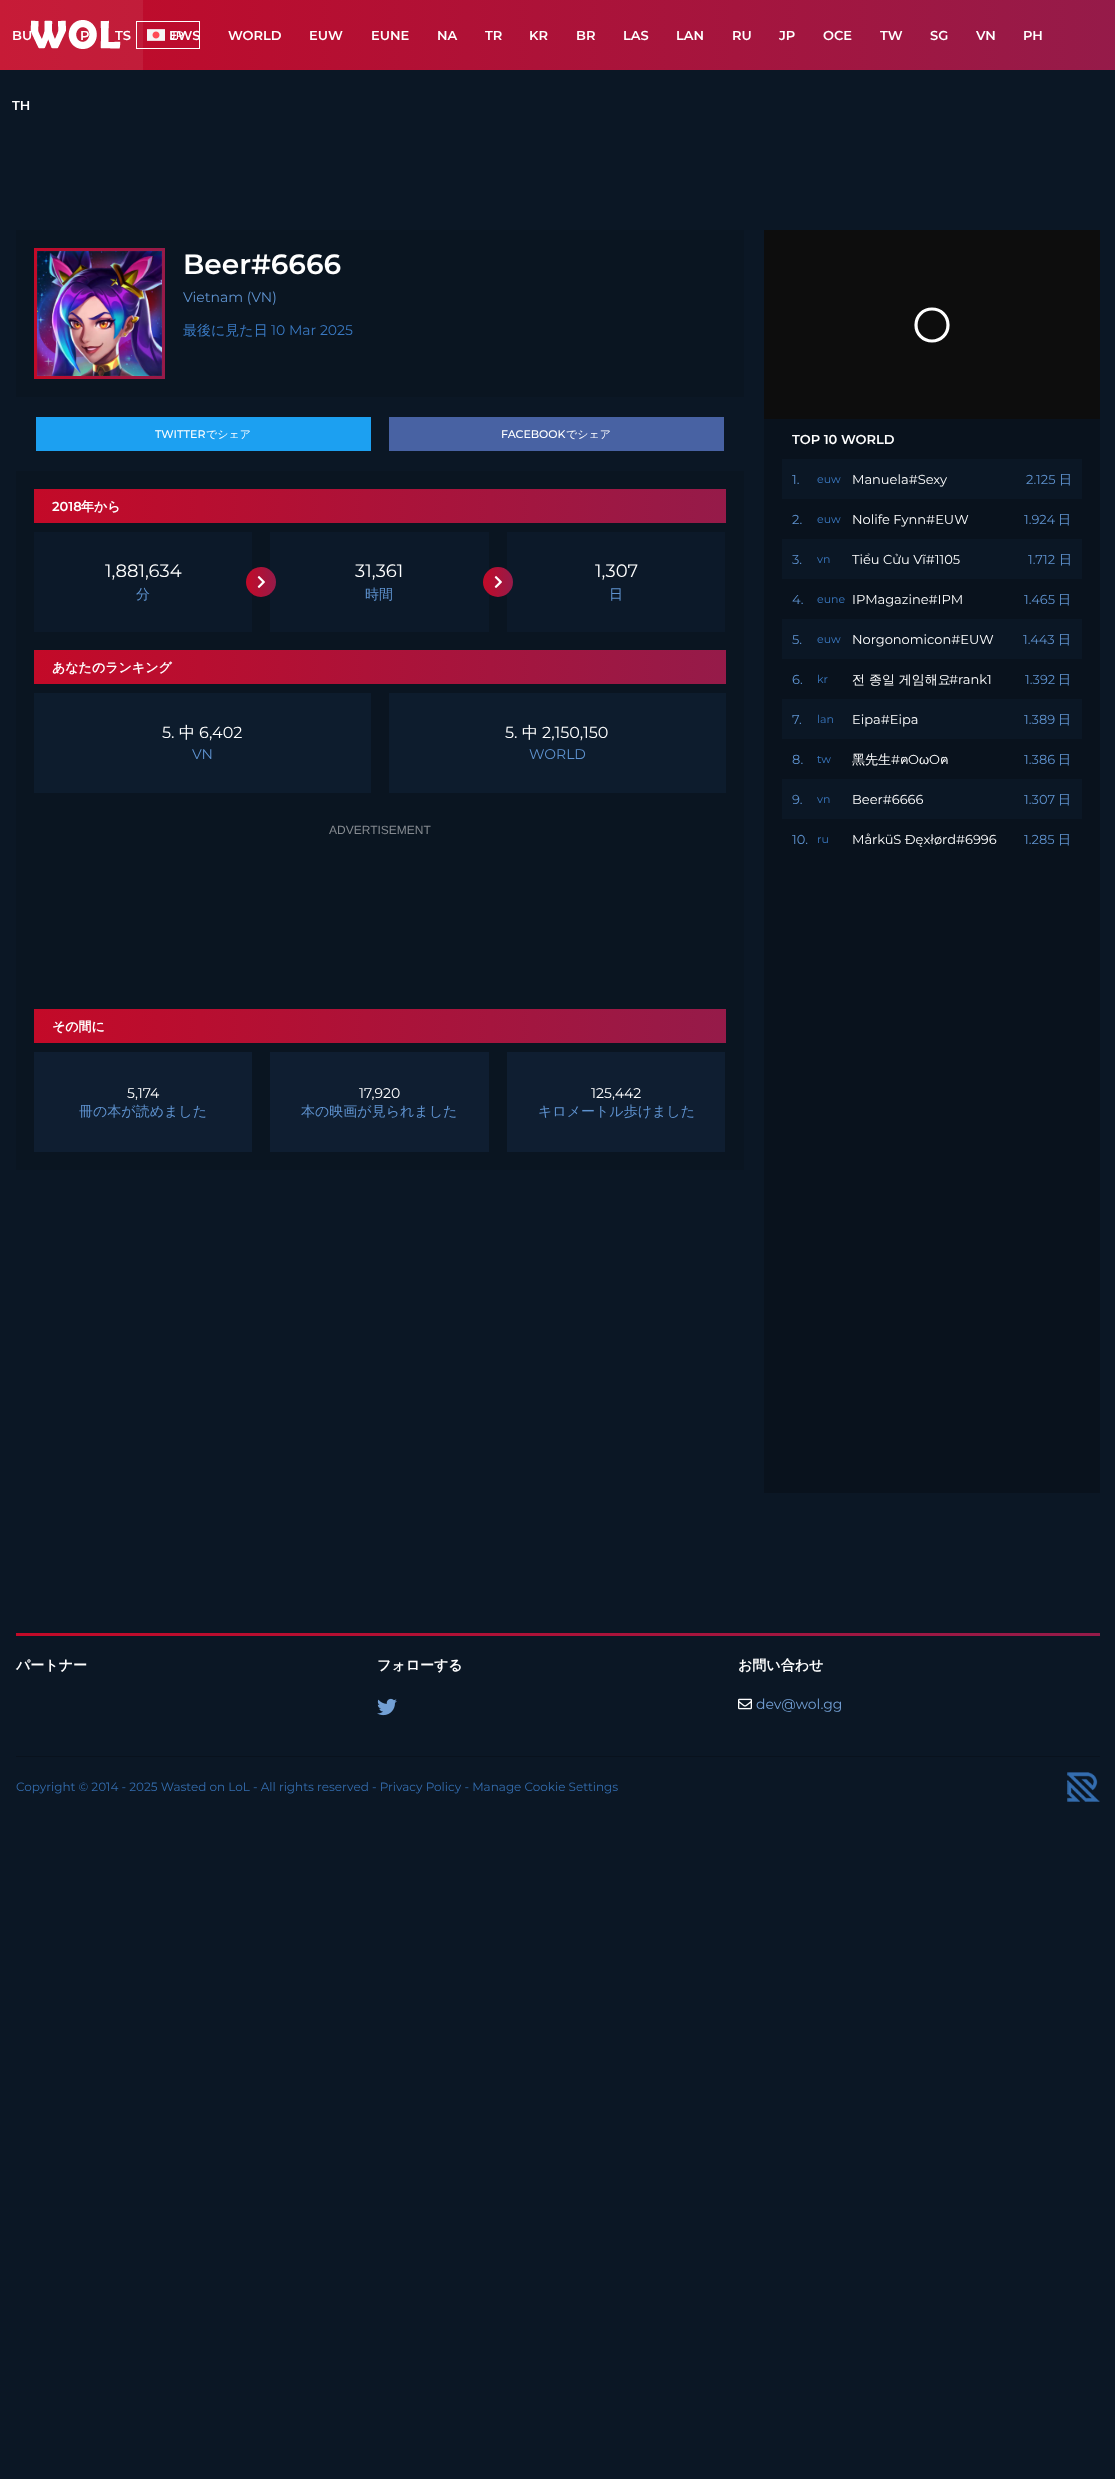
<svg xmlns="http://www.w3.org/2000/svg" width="1115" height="2479">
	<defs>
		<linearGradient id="g1" gradientUnits="userSpaceOnUse" x1="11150" y1="350" x2="0" y2="350"><stop offset="0" stop-color="#1E9B41" /><stop offset="0.33" stop-color="#A5D22D" /><stop offset="0.67" stop-color="#2D4196" /><stop offset="1" stop-color="#C30A28" /></linearGradient>
		<linearGradient id="g2" gradientUnits="userSpaceOnUse" x1="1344" y1="903" x2="34" y2="903"><stop offset="0" stop-color="#1E9B41" /><stop offset="0.33" stop-color="#A5D22D" /><stop offset="0.67" stop-color="#2D4196" /><stop offset="1" stop-color="#C30A28" /></linearGradient>
		<linearGradient id="g3" gradientUnits="userSpaceOnUse" x1="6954" y1="659" x2="34" y2="659"><stop offset="0" stop-color="#1E9B41" /><stop offset="0.33" stop-color="#A5D22D" /><stop offset="0.67" stop-color="#2D4196" /><stop offset="1" stop-color="#C30A28" /></linearGradient>
		<linearGradient id="g4" gradientUnits="userSpaceOnUse" x1="546" y1="717" x2="246" y2="717"><stop offset="0" stop-color="#1E9B41" /><stop offset="0.33" stop-color="#A5D22D" /><stop offset="0.67" stop-color="#2D4196" /><stop offset="1" stop-color="#C30A28" /></linearGradient>
		<linearGradient id="g5" gradientUnits="userSpaceOnUse" x1="783" y1="717" x2="483" y2="717"><stop offset="0" stop-color="#1E9B41" /><stop offset="0.33" stop-color="#A5D22D" /><stop offset="0.67" stop-color="#2D4196" /><stop offset="1" stop-color="#C30A28" /></linearGradient>
		<linearGradient id="g6" gradientUnits="userSpaceOnUse" x1="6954" y1="820" x2="34" y2="820"><stop offset="0" stop-color="#1E9B41" /><stop offset="0.33" stop-color="#A5D22D" /><stop offset="0.67" stop-color="#2D4196" /><stop offset="1" stop-color="#C30A28" /></linearGradient>
		<linearGradient id="g7" gradientUnits="userSpaceOnUse" x1="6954" y1="1179" x2="34" y2="1179"><stop offset="0" stop-color="#1E9B41" /><stop offset="0.33" stop-color="#A5D22D" /><stop offset="0.67" stop-color="#2D4196" /><stop offset="1" stop-color="#C30A28" /></linearGradient>
		<linearGradient id="g8" gradientUnits="userSpaceOnUse" x1="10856" y1="1648" x2="16" y2="1648"><stop offset="0" stop-color="#1E9B41" /><stop offset="0.33" stop-color="#A5D22D" /><stop offset="0.67" stop-color="#2D4196" /><stop offset="1" stop-color="#C30A28" /></linearGradient>
	</defs>
	<rect width="100%" height="100%" fill="#0B1725" />
	<rect x="0" y="0" width="1115" height="70" fill="url(#g1)" />
	<image x="30" y="20" width="91" height="29" href="assets/img1.png" />
	<rect x="136.5" y="21.5" width="63" height="27" fill="none" stroke="#FFFFFF" />
	<rect x="0" y="0" width="143" height="70" fill="#FFFFFF" fill-opacity="0.07" />
	<g font-family="Montserrat" font-size="13" font-weight="600" fill="#FFFFFF">
		<text x="12" y="40">BU</text>
		<text x="80" y="40">P</text>
		<text x="115" y="40">TS</text>
	</g>
	<text x="170" y="39" font-family="Montserrat" font-size="11" font-weight="500" fill="#FFFFFF">JP</text>
	<g font-family="Montserrat" font-size="13" font-weight="600" fill="#FFFFFF">
		<text x="169" y="40">EWS</text>
		<text x="228" y="40">WORLD</text>
		<text x="309" y="40">EUW</text>
		<text x="371" y="40">EUNE</text>
		<text x="437" y="40">NA</text>
		<text x="485" y="40">TR</text>
		<text x="529" y="40">KR</text>
		<text x="576" y="40">BR</text>
		<text x="623" y="40">LAS</text>
		<text x="676" y="40">LAN</text>
		<text x="732" y="40">RU</text>
		<text x="779" y="40">JP</text>
		<text x="823" y="40">OCE</text>
		<text x="880" y="40">TW</text>
		<text x="930" y="40">SG</text>
		<text x="976" y="40">VN</text>
		<text x="1023" y="40">PH</text>
		<text x="12" y="110">TH</text>
	</g>
	<image x="147" y="29" width="18" height="12" href="assets/img2.png" />
	<rect x="16" y="230" width="728" height="167" fill="#0A1521" />
	<rect x="34" y="248" width="131" height="131" fill="url(#g2)" />
	<image x="37" y="251" width="125" height="125" href="assets/img3.png" />
	<text x="183" y="274" font-family="Montserrat" font-size="28" font-weight="600" fill="#FFFFFF">Beer#6666</text>
	<text x="183" y="302" font-family="Montserrat" font-size="14" fill="#5F93D0">Vietnam (VN)</text>
	<text x="183" y="335" font-family="WenQuanYi Zen Hei" font-size="14" font-weight="500" fill="#3A79C2">最後に見た日</text>
	<text x="271" y="335" font-family="Montserrat" font-size="14" fill="#3A79C2">10 Mar 2025</text>
	<rect x="36" y="417" width="335" height="34" fill="#1CA0F1" />
	<text x="155" y="438" font-family="Montserrat" font-size="11" font-weight="500" fill="#FFFFFF">TWITTER</text>
	<text x="206" y="438" font-family="WenQuanYi Zen Hei" font-size="11" font-weight="500" fill="#FFFFFF">でシェア</text>
	<rect x="389" y="417" width="335" height="34" fill="#4862A3" />
	<text x="501" y="438" font-family="Montserrat" font-size="11" font-weight="500" fill="#FFFFFF">FACEBOOK</text>
	<text x="566" y="438" font-family="WenQuanYi Zen Hei" font-size="11" font-weight="500" fill="#FFFFFF">でシェア</text>
	<rect x="16" y="471" width="728" height="699" fill="#0A1521" />
	<rect x="34" y="489" width="692" height="34" fill="url(#g3)" />
	<text x="52" y="511" font-family="Montserrat" font-size="13" font-weight="600" fill="#FFFFFF">2018</text>
	<text x="81" y="511" font-family="WenQuanYi Zen Hei" font-size="13" font-weight="700" fill="#FFFFFF">年から</text>
	<rect x="34" y="532" width="218" height="100" fill="#0C1929" />
	<text x="105" y="577" font-family="Montserrat" font-size="18" fill="#FFFFFF">1,881,634</text>
	<text x="136" y="599" font-family="WenQuanYi Zen Hei" font-size="14" font-weight="500" fill="#5F93D0">分</text>
	<rect x="270" y="532" width="219" height="100" fill="#0C1929" />
	<circle cx="261" cy="582" r="15" fill="url(#g4)" />
	<image x="257" y="576" width="8" height="12" href="assets/img4.png" />
	<text x="355" y="577" font-family="Montserrat" font-size="18" fill="#FFFFFF">31,361</text>
	<text x="365" y="599" font-family="WenQuanYi Zen Hei" font-size="14" font-weight="500" fill="#5F93D0">時間</text>
	<rect x="507" y="532" width="218" height="100" fill="#0C1929" />
	<circle cx="498" cy="582" r="15" fill="url(#g5)" />
	<image x="494" y="576" width="8" height="12" href="assets/img4.png" />
	<text x="595" y="577" font-family="Montserrat" font-size="18" fill="#FFFFFF">1,307</text>
	<text x="609" y="599" font-family="WenQuanYi Zen Hei" font-size="14" font-weight="500" fill="#5F93D0">日</text>
	<rect x="34" y="650" width="692" height="34" fill="url(#g6)" />
	<text x="52" y="672" font-family="WenQuanYi Zen Hei" font-size="13" font-weight="700" fill="#FFFFFF">あなたのランキング</text>
	<rect x="34" y="693" width="337" height="100" fill="#0D1C2D" />
	<text x="162" y="738" font-family="Montserrat" font-size="16" fill="#FFFFFF">5.</text>
	<text x="179" y="738" font-family="WenQuanYi Zen Hei" font-size="16" font-weight="500" fill="#FFFFFF">中</text>
	<text x="199" y="738" font-family="Montserrat" font-size="16" fill="#FFFFFF">6,402</text>
	<text x="192" y="759" font-family="Montserrat" font-size="14" fill="#5F93D0">VN</text>
	<rect x="389" y="693" width="337" height="100" fill="#0D1C2D" />
	<text x="505" y="738" font-family="Montserrat" font-size="16" fill="#FFFFFF">5.</text>
	<text x="522" y="738" font-family="WenQuanYi Zen Hei" font-size="16" font-weight="500" fill="#FFFFFF">中</text>
	<text x="542" y="738" font-family="Montserrat" font-size="16" fill="#FFFFFF">2,150,150</text>
	<text x="529" y="759" font-family="Montserrat" font-size="14" fill="#5F93D0">WORLD</text>
	<text x="329" y="834" font-family="Liberation Sans" font-size="12" fill="#858A90">ADVERTISEMENT</text>
	<rect x="34" y="1009" width="692" height="34" fill="url(#g7)" />
	<text x="52" y="1031" font-family="WenQuanYi Zen Hei" font-size="13" font-weight="700" fill="#FFFFFF">その間に</text>
	<rect x="34" y="1052" width="218" height="100" fill="#0F1E31" />
	<text x="127" y="1098" font-family="Montserrat" font-size="14" fill="#FFFFFF">5,174</text>
	<text x="79" y="1116" font-family="WenQuanYi Zen Hei" font-size="14" font-weight="500" fill="#5F93D0">冊の本が読めました</text>
	<rect x="270" y="1052" width="219" height="100" fill="#0F1E31" />
	<text x="359" y="1098" font-family="Montserrat" font-size="14" fill="#FFFFFF">17,920</text>
	<text x="301" y="1116" font-family="WenQuanYi Zen Hei" font-size="14" font-weight="500" fill="#5F93D0">本の映画が見られました</text>
	<rect x="507" y="1052" width="218" height="100" fill="#0F1E31" />
	<text x="591" y="1098" font-family="Montserrat" font-size="14" fill="#FFFFFF">125,442</text>
	<text x="538" y="1116" font-family="WenQuanYi Zen Hei" font-size="14" font-weight="500" fill="#5F93D0">キロメートル歩けました</text>
	<rect x="764" y="419" width="336" height="1074" fill="#09121D" />
	<rect x="764" y="230" width="336" height="189" fill="#0D0D0D" />
	<path d="M916 325C916 316 923 309 932 309C941 309 948 316 948 325C948 334 941 341 932 341C923 341 916 334 916 325" fill="none" stroke="#FFFFFF" stroke-width="3.2" />
	<text x="792" y="444" font-family="Montserrat" font-size="13" font-weight="600" fill="#FFFFFF">TOP 10 WORLD</text>
	<rect x="782" y="459" width="300" height="40" fill="#0B1725" />
	<text x="792" y="484" font-family="Montserrat" font-size="13" fill="#5F93D0">1.</text>
	<text x="817" y="483" font-family="Montserrat" font-size="11" fill="#3A79C2">euw</text>
	<text x="852" y="484" font-family="Montserrat" font-size="13" fill="#FFFFFF">Manuela#Sexy</text>
	<text x="1026" y="484" font-family="Montserrat" font-size="13" fill="#5F93D0">2.125</text>
	<text x="1059" y="484" font-family="WenQuanYi Zen Hei" font-size="13" font-weight="500" fill="#5F93D0">日</text>
	<text x="792" y="524" font-family="Montserrat" font-size="13" fill="#5F93D0">2.</text>
	<text x="817" y="523" font-family="Montserrat" font-size="11" fill="#3A79C2">euw</text>
	<text x="852" y="524" font-family="Montserrat" font-size="13" fill="#FFFFFF">Nolife Fynn#EUW</text>
	<text x="1024" y="524" font-family="Montserrat" font-size="13" fill="#5F93D0">1.924</text>
	<text x="1058" y="524" font-family="WenQuanYi Zen Hei" font-size="13" font-weight="500" fill="#5F93D0">日</text>
	<rect x="782" y="539" width="300" height="40" fill="#0B1725" />
	<text x="792" y="564" font-family="Montserrat" font-size="13" fill="#5F93D0">3.</text>
	<text x="817" y="563" font-family="Montserrat" font-size="11" fill="#3A79C2">vn</text>
	<text x="852" y="564" font-family="Montserrat" font-size="13" fill="#FFFFFF">Tiểu Cửu Vĩ#1105</text>
	<text x="1028" y="564" font-family="Montserrat" font-size="13" fill="#5F93D0">1.712</text>
	<text x="1059" y="564" font-family="WenQuanYi Zen Hei" font-size="13" font-weight="500" fill="#5F93D0">日</text>
	<text x="792" y="604" font-family="Montserrat" font-size="13" fill="#5F93D0">4.</text>
	<text x="817" y="603" font-family="Montserrat" font-size="11" fill="#3A79C2">eune</text>
	<text x="852" y="604" font-family="Montserrat" font-size="13" fill="#FFFFFF">IPMagazine#IPM</text>
	<text x="1024" y="604" font-family="Montserrat" font-size="13" fill="#5F93D0">1.465</text>
	<text x="1058" y="604" font-family="WenQuanYi Zen Hei" font-size="13" font-weight="500" fill="#5F93D0">日</text>
	<rect x="782" y="619" width="300" height="40" fill="#0B1725" />
	<text x="792" y="644" font-family="Montserrat" font-size="13" fill="#5F93D0">5.</text>
	<text x="817" y="643" font-family="Montserrat" font-size="11" fill="#3A79C2">euw</text>
	<text x="852" y="644" font-family="Montserrat" font-size="13" fill="#FFFFFF">Norgonomicon#EUW</text>
	<text x="1023" y="644" font-family="Montserrat" font-size="13" fill="#5F93D0">1.443</text>
	<text x="1058" y="644" font-family="WenQuanYi Zen Hei" font-size="13" font-weight="500" fill="#5F93D0">日</text>
	<text x="792" y="684" font-family="Montserrat" font-size="13" fill="#5F93D0">6.</text>
	<text x="817" y="683" font-family="Montserrat" font-size="11" fill="#3A79C2">kr</text>
	<text x="852" y="684" font-family="WenQuanYi Zen Hei" font-size="13" font-weight="500" fill="#FFFFFF">전 종일 게임해요</text>
	<text x="949" y="684" font-family="Montserrat" font-size="13" fill="#FFFFFF">#rank1</text>
	<text x="1025" y="684" font-family="Montserrat" font-size="13" fill="#5F93D0">1.392</text>
	<text x="1058" y="684" font-family="WenQuanYi Zen Hei" font-size="13" font-weight="500" fill="#5F93D0">日</text>
	<rect x="782" y="699" width="300" height="40" fill="#0B1725" />
	<text x="792" y="724" font-family="Montserrat" font-size="13" fill="#5F93D0">7.</text>
	<text x="817" y="723" font-family="Montserrat" font-size="11" fill="#3A79C2">lan</text>
	<text x="852" y="724" font-family="Montserrat" font-size="13" fill="#FFFFFF">Eipa#Eipa</text>
	<text x="1024" y="724" font-family="Montserrat" font-size="13" fill="#5F93D0">1.389</text>
	<text x="1058" y="724" font-family="WenQuanYi Zen Hei" font-size="13" font-weight="500" fill="#5F93D0">日</text>
	<text x="792" y="764" font-family="Montserrat" font-size="13" fill="#5F93D0">8.</text>
	<text x="817" y="763" font-family="Montserrat" font-size="11" fill="#3A79C2">tw</text>
	<text x="852" y="764" font-family="WenQuanYi Zen Hei" font-size="13" font-weight="500" fill="#FFFFFF">黑先生</text>
	<text x="891" y="764" font-family="Montserrat" font-size="13" fill="#FFFFFF">#</text>
	<text x="900" y="764" font-family="Loma" font-size="13" fill="#FFFFFF">ฅ</text>
	<text x="908" y="764" font-family="Montserrat" font-size="13" fill="#FFFFFF">O</text>
	<text x="919" y="764" font-family="Liberation Sans" font-size="13" fill="#FFFFFF">ω</text>
	<text x="929" y="764" font-family="Montserrat" font-size="13" fill="#FFFFFF">O</text>
	<text x="940" y="764" font-family="Loma" font-size="13" fill="#FFFFFF">ฅ</text>
	<text x="1024" y="764" font-family="Montserrat" font-size="13" fill="#5F93D0">1.386</text>
	<text x="1058" y="764" font-family="WenQuanYi Zen Hei" font-size="13" font-weight="500" fill="#5F93D0">日</text>
	<rect x="782" y="779" width="300" height="40" fill="#0B1725" />
	<text x="792" y="804" font-family="Montserrat" font-size="13" fill="#5F93D0">9.</text>
	<text x="817" y="803" font-family="Montserrat" font-size="11" fill="#3A79C2">vn</text>
	<text x="852" y="804" font-family="Montserrat" font-size="13" fill="#FFFFFF">Beer#6666</text>
	<text x="1024" y="804" font-family="Montserrat" font-size="13" fill="#5F93D0">1.307</text>
	<text x="1058" y="804" font-family="WenQuanYi Zen Hei" font-size="13" font-weight="500" fill="#5F93D0">日</text>
	<text x="792" y="844" font-family="Montserrat" font-size="13" fill="#5F93D0">10.</text>
	<text x="817" y="843" font-family="Montserrat" font-size="11" fill="#3A79C2">ru</text>
	<text x="852" y="844" font-family="Montserrat" font-size="13" fill="#FFFFFF">MårküS Đęxłørd#6996</text>
	<text x="1024" y="844" font-family="Montserrat" font-size="13" fill="#5F93D0">1.285</text>
	<text x="1058" y="844" font-family="WenQuanYi Zen Hei" font-size="13" font-weight="500" fill="#5F93D0">日</text>
	<rect x="16" y="1633" width="1084" height="3" fill="url(#g8)" />
	<g font-family="WenQuanYi Zen Hei" font-size="14" font-weight="700" fill="#FFFFFF">
		<text x="16" y="1670">パートナー</text>
		<text x="377" y="1670">フォローする</text>
	</g>
	<image x="377" y="1698" width="20" height="18" href="assets/img5.png" />
	<text x="738" y="1670" font-family="WenQuanYi Zen Hei" font-size="14" font-weight="700" fill="#FFFFFF">お問い合わせ</text>
	<image x="738" y="1698" width="14" height="12" href="assets/img6.png" />
	<text x="756" y="1709" font-family="Montserrat" font-size="14" fill="#73A0D5">dev@wol.gg</text>
	<rect x="16" y="1756" width="1084" height="1" fill="#09121D" />
	<text x="16" y="1791" font-family="Montserrat" font-size="12" fill="#346DAF">Copyright © 2014 - 2025 Wasted on LoL - All rights reserved - Privacy Policy - Manage Cookie Settings</text>
	<image x="1067" y="1772" width="33" height="30" href="assets/img7.png" />
</svg>
